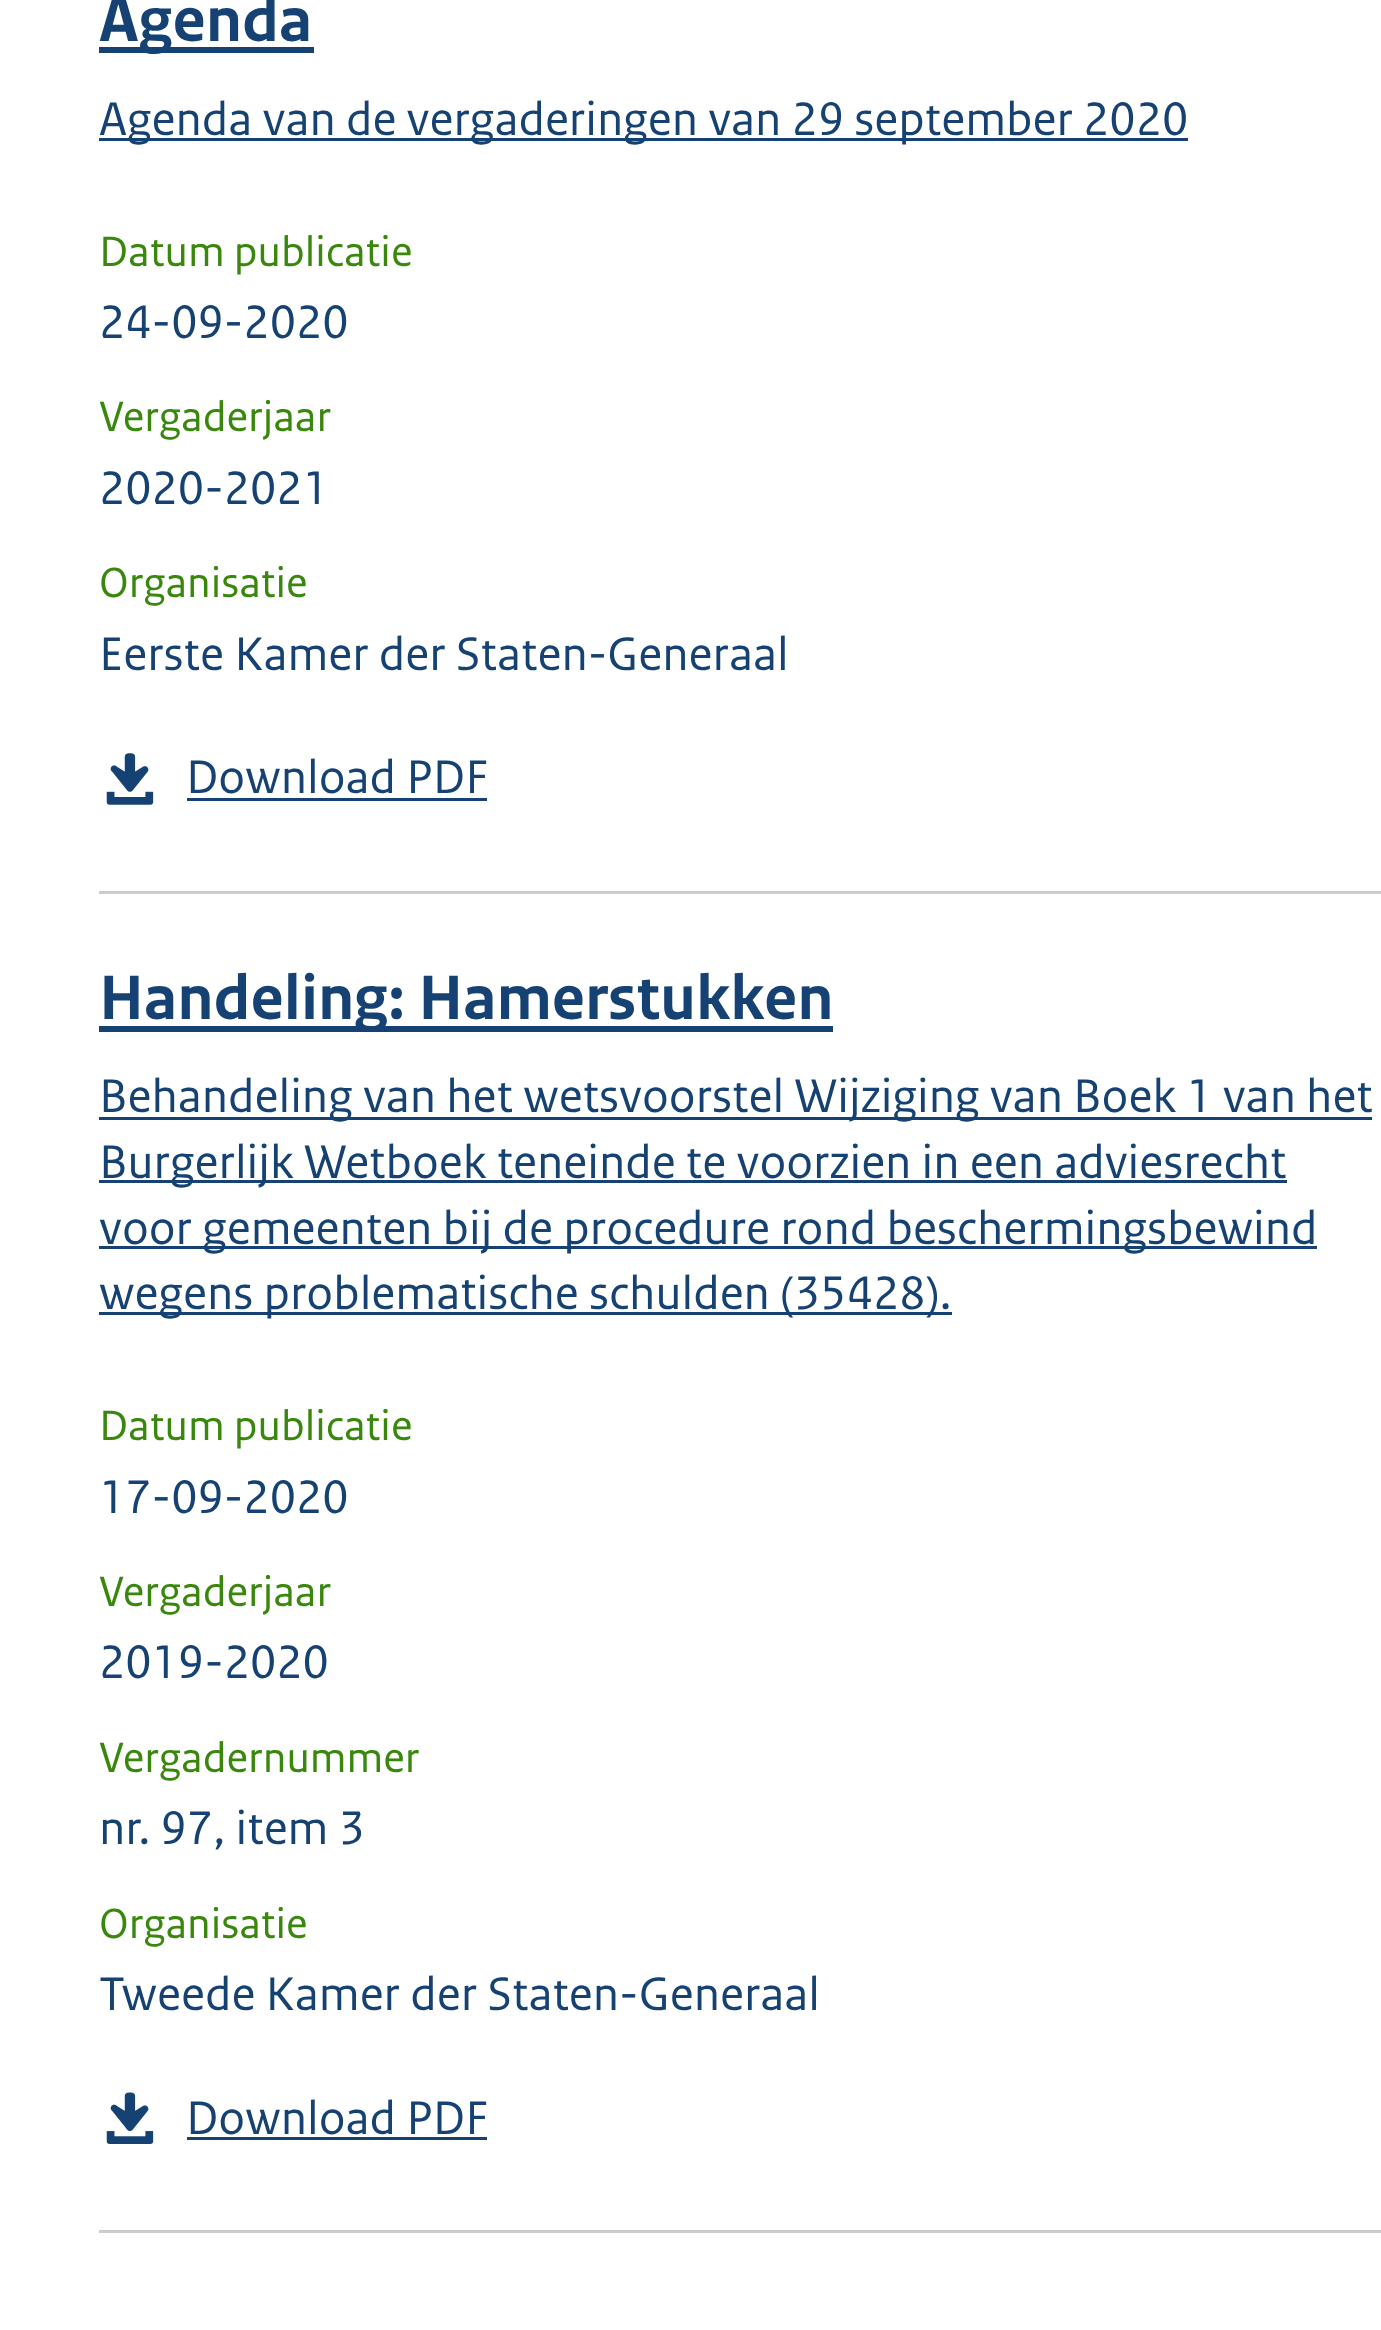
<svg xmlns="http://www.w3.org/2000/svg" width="1381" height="2330">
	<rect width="100%" height="100%" fill="#FFFFFF" />
	<rect x="99" y="891" width="1282" height="3" fill="#CCCCCC" />
	<rect x="99" y="47" width="215" height="6" fill="#154273" />
	<text x="99" y="41" font-family="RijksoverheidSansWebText" font-size="66" font-weight="700" fill="#154273">Agenda</text>
	<rect x="99" y="138" width="1089" height="3" fill="#154273" />
	<text x="99" y="135" font-family="RijksoverheidSansWebText" font-size="49.5" fill="#154273">Agenda van de vergaderingen van 29 september 2020</text>
	<text x="99" y="266" font-family="RijksoverheidSansWebText" font-size="44.5" fill="#39870C">Datum publicatie</text>
	<text x="99" y="338" font-family="RijksoverheidSansWebText" font-size="49.5" fill="#154273">24-09-2020</text>
	<text x="99" y="431" font-family="RijksoverheidSansWebText" font-size="44.5" fill="#39870C">Vergaderjaar</text>
	<text x="99" y="504" font-family="RijksoverheidSansWebText" font-size="49.5" fill="#154273">2020-2021</text>
	<text x="99" y="597" font-family="RijksoverheidSansWebText" font-size="44.5" fill="#39870C">Organisatie</text>
	<text x="99" y="670" font-family="RijksoverheidSansWebText" font-size="49.5" fill="#154273">Eerste Kamer der Staten-Generaal</text>
	<image x="106" y="753" width="48" height="52" href="assets/img1.png" />
	<text x="186" y="793" font-family="RijksoverheidSansWebText" font-size="49.5" fill="#154273">Download PDF</text>
	<rect x="187" y="798" width="300" height="3" fill="#154273" />
	<rect x="99" y="2230" width="1282" height="3" fill="#CCCCCC" />
	<rect x="99" y="1026" width="734" height="6" fill="#154273" />
	<text x="99" y="1019" font-family="RijksoverheidSansWebText" font-size="66" font-weight="700" fill="#154273">Handeling: Hamerstukken</text>
	<rect x="99" y="1117" width="1273" height="3" fill="#154273" />
	<text x="99" y="1112" font-family="RijksoverheidSansWebText" font-size="49.5" fill="#154273">Behandeling van het wetsvoorstel Wijziging van Boek 1 van het</text>
	<rect x="99" y="1180" width="1188" height="3" fill="#154273" />
	<text x="99" y="1178" font-family="RijksoverheidSansWebText" font-size="49.5" fill="#154273">Burgerlijk Wetboek teneinde te voorzien in een adviesrecht</text>
	<rect x="99" y="1246" width="1218" height="3" fill="#154273" />
	<text x="99" y="1244" font-family="RijksoverheidSansWebText" font-size="49.5" fill="#154273">voor gemeenten bij de procedure rond beschermingsbewind</text>
	<rect x="99" y="1312" width="853" height="3" fill="#154273" />
	<text x="99" y="1309" font-family="RijksoverheidSansWebText" font-size="49.5" fill="#154273">wegens problematische schulden (35428).</text>
	<text x="99" y="1440" font-family="RijksoverheidSansWebText" font-size="44.5" fill="#39870C">Datum publicatie</text>
	<text x="99" y="1513" font-family="RijksoverheidSansWebText" font-size="49.5" fill="#154273">17-09-2020</text>
	<text x="99" y="1606" font-family="RijksoverheidSansWebText" font-size="44.5" fill="#39870C">Vergaderjaar</text>
	<text x="99" y="1678" font-family="RijksoverheidSansWebText" font-size="49.5" fill="#154273">2019-2020</text>
	<text x="99" y="1772" font-family="RijksoverheidSansWebText" font-size="44.5" fill="#39870C">Vergadernummer</text>
	<text x="99" y="1844" font-family="RijksoverheidSansWebText" font-size="49.5" fill="#154273">nr. 97, item 3</text>
	<text x="99" y="1938" font-family="RijksoverheidSansWebText" font-size="44.5" fill="#39870C">Organisatie</text>
	<text x="99" y="2010" font-family="RijksoverheidSansWebText" font-size="49.5" fill="#154273">Tweede Kamer der Staten-Generaal</text>
	<image x="106" y="2092" width="48" height="52" href="assets/img2.png" />
	<text x="186" y="2134" font-family="RijksoverheidSansWebText" font-size="49.5" fill="#154273">Download PDF</text>
	<rect x="187" y="2137" width="300" height="3" fill="#154273" />
</svg>
